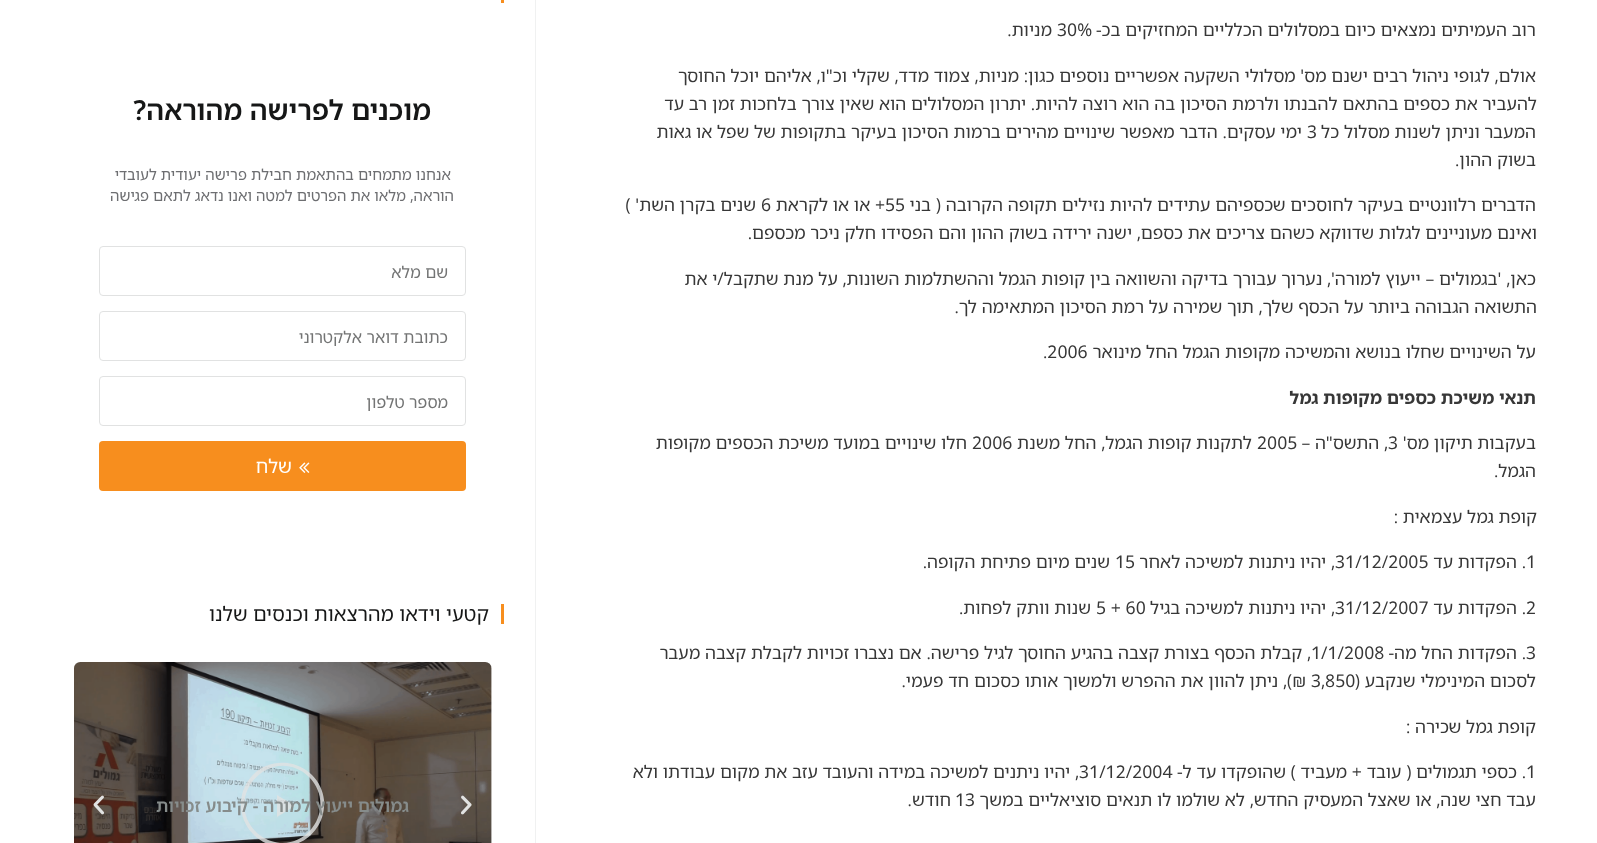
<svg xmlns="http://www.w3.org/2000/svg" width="1597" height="843">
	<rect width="100%" height="100%" fill="#FFFFFF" />
	<text x="1536" y="36" font-family="Noto Sans Hebrew" font-size="17.5" direction="rtl" fill="#373737">רוב העמיתים נמצאים כיום במסלולים הכלליים המחזיקים בכ-</text>
	<text x="1057" y="36" font-family="Noto Sans Hebrew" font-size="17.5" fill="#373737">30%</text>
	<g font-family="Noto Sans Hebrew" font-size="17.5" direction="rtl" fill="#373737">
		<text x="1052" y="36">מניות.</text>
		<text x="1536" y="82">אולם, לגופי ניהול רבים ישנם מס' מסלולי השקעה אפשריים נוספים כגון: מניות, צמוד מדד, שקלי וכ"ו, אליהם יוכל החוסך</text>
		<text x="1537" y="110">להעביר את כספים בהתאם להבנתו ולרמת הסיכון בה הוא רוצה להיות. יתרון המסלולים הוא שאין צורך בלחכות זמן רב עד</text>
		<text x="1536" y="138">המעבר וניתן לשנות מסלול כל</text>
	</g>
	<text x="1307" y="138" font-family="Noto Sans Hebrew" font-size="17.5" fill="#373737">3</text>
	<g font-family="Noto Sans Hebrew" font-size="17.5" direction="rtl" fill="#373737">
		<text x="1302" y="138">ימי עסקים. הדבר מאפשר שינויים מהירים ברמות הסיכון בעיקר בתקופות של שפל או גאות</text>
		<text x="1536" y="166">בשוק ההון.</text>
		<text x="1536" y="211">הדברים רלוונטיים בעיקר לחוסכים שכספיהם עתידים להיות נזילים תקופה הקרובה ( בני</text>
	</g>
	<text x="885" y="211" font-family="Noto Sans Hebrew" font-size="17.5" fill="#373737">55</text>
	<text x="885" y="211" font-family="Noto Sans Hebrew" font-size="17.5" direction="rtl" fill="#373737">+ או או לקראת</text>
	<text x="761" y="211" font-family="Noto Sans Hebrew" font-size="17.5" fill="#373737">6</text>
	<g font-family="Noto Sans Hebrew" font-size="17.5" direction="rtl" fill="#373737">
		<text x="756" y="211">שנים בקרן השת' )</text>
		<text x="1537" y="239">ואינם מעוניינים לגלות שדווקא כשהם צריכים את כספם, ישנה ירידה בשוק ההון והם הפסידו חלק ניכר מכספם.</text>
		<text x="1536" y="285">כאן, 'בגמולים – ייעוץ למורה', נערוך עבורך בדיקה והשוואה בין קופות הגמל וההשתלמות השונות, על מנת שתקבל/י את</text>
		<text x="1537" y="313">התשואה הגבוהה ביותר על הכסף שלך, תוך שמירה על רמת הסיכון המתאימה לך.</text>
		<text x="1536" y="358">על השינויים שחלו בנושא והמשיכה מקופות הגמל החל מינואר</text>
	</g>
	<text x="1043" y="358" font-family="Noto Sans Hebrew" font-size="17.5" fill="#373737">.2006</text>
	<text x="1536" y="404" font-family="Noto Sans Hebrew" font-size="17.5" font-weight="700" direction="rtl" fill="#373737">תנאי משיכת כספים מקופות גמל</text>
	<text x="1536" y="449" font-family="Noto Sans Hebrew" font-size="17.5" direction="rtl" fill="#373737">בעקבות תיקון מס'</text>
	<text x="1388" y="449" font-family="Noto Sans Hebrew" font-size="17.5" fill="#373737">3</text>
	<text x="1388" y="449" font-family="Noto Sans Hebrew" font-size="17.5" direction="rtl" fill="#373737">, התשס"ה –</text>
	<text x="1257" y="449" font-family="Noto Sans Hebrew" font-size="17.5" fill="#373737">2005</text>
	<text x="1252" y="449" font-family="Noto Sans Hebrew" font-size="17.5" direction="rtl" fill="#373737">לתקנות קופות הגמל, החל משנת</text>
	<text x="972" y="449" font-family="Noto Sans Hebrew" font-size="17.5" fill="#373737">2006</text>
	<g font-family="Noto Sans Hebrew" font-size="17.5" direction="rtl" fill="#373737">
		<text x="967" y="449">חלו שינויים במועד משיכת הכספים מקופות</text>
		<text x="1536" y="477">הגמל.</text>
		<text x="1537" y="523">קופת גמל עצמאית :</text>
	</g>
	<text x="1526" y="568" font-family="Noto Sans Hebrew" font-size="17.5" fill="#373737">1</text>
	<text x="1526" y="568" font-family="Noto Sans Hebrew" font-size="17.5" direction="rtl" fill="#373737">. הפקדות עד</text>
	<text x="1335" y="568" font-family="Noto Sans Hebrew" font-size="17.5" fill="#373737">31/12/2005</text>
	<text x="1335" y="568" font-family="Noto Sans Hebrew" font-size="17.5" direction="rtl" fill="#373737">, יהיו ניתנות למשיכה לאחר</text>
	<text x="1115" y="568" font-family="Noto Sans Hebrew" font-size="17.5" fill="#373737">15</text>
	<text x="1110" y="568" font-family="Noto Sans Hebrew" font-size="17.5" direction="rtl" fill="#373737">שנים מיום פתיחת הקופה.</text>
	<text x="1526" y="614" font-family="Noto Sans Hebrew" font-size="17.5" fill="#373737">2</text>
	<text x="1526" y="614" font-family="Noto Sans Hebrew" font-size="17.5" direction="rtl" fill="#373737">. הפקדות עד</text>
	<text x="1335" y="614" font-family="Noto Sans Hebrew" font-size="17.5" fill="#373737">31/12/2007</text>
	<text x="1335" y="614" font-family="Noto Sans Hebrew" font-size="17.5" direction="rtl" fill="#373737">, יהיו ניתנות למשיכה בגיל</text>
	<text x="1096" y="614" font-family="Noto Sans Hebrew" font-size="17.5" fill="#373737">5 + 60</text>
	<text x="1091" y="614" font-family="Noto Sans Hebrew" font-size="17.5" direction="rtl" fill="#373737">שנות וותק לפחות.</text>
	<text x="1526" y="659" font-family="Noto Sans Hebrew" font-size="17.5" fill="#373737">3</text>
	<text x="1526" y="659" font-family="Noto Sans Hebrew" font-size="17.5" direction="rtl" fill="#373737">. הפקדות החל מה-</text>
	<text x="1311" y="659" font-family="Noto Sans Hebrew" font-size="17.5" fill="#373737">1/1/2008</text>
	<g font-family="Noto Sans Hebrew" font-size="17.5" direction="rtl" fill="#373737">
		<text x="1311" y="659">, קבלת הכסף בצורת קצבה בהגיע החוסך לגיל פרישה. אם נצברו זכויות לקבלת קצבה מעבר</text>
		<text x="1536" y="687">לסכום המינימלי שנקבע (</text>
	</g>
	<text x="1311" y="687" font-family="Noto Sans Hebrew" font-size="17.5" fill="#373737">3,850</text>
	<g font-family="Noto Sans Hebrew" font-size="17.5" direction="rtl" fill="#373737">
		<text x="1306" y="687">₪), ניתן להוון את ההפרש ולמשוך אותו כסכום חד פעמי.</text>
		<text x="1536" y="733">קופת גמל שכירה :</text>
	</g>
	<text x="1526" y="778" font-family="Noto Sans Hebrew" font-size="17.5" fill="#373737">1</text>
	<text x="1526" y="778" font-family="Noto Sans Hebrew" font-size="17.5" direction="rtl" fill="#373737">. כספי תגמולים ( עובד + מעביד ) שהופקדו עד ל-</text>
	<text x="1079" y="778" font-family="Noto Sans Hebrew" font-size="17.5" fill="#373737">31/12/2004</text>
	<g font-family="Noto Sans Hebrew" font-size="17.5" direction="rtl" fill="#373737">
		<text x="1079" y="778">, יהיו ניתנים למשיכה במידה והעובד עזב את מקום עבודתו ולא</text>
		<text x="1536" y="806">עבד חצי שנה, או שאצל המעסיק החדש, לא שולמו לו תנאים סוציאליים במשך</text>
	</g>
	<text x="955" y="806" font-family="Noto Sans Hebrew" font-size="17.5" fill="#373737">13</text>
	<text x="951" y="806" font-family="Noto Sans Hebrew" font-size="17.5" direction="rtl" fill="#373737">חודש.</text>
	<rect x="535" y="0" width="1" height="843" fill="#F0F1F1" />
	<rect x="501" y="0" width="3" height="3" fill="#F78E1E" />
	<text x="431" y="120" font-family="Noto Sans Hebrew" font-size="27.5" font-weight="600" direction="rtl" fill="#161717">מוכנים לפרישה מהוראה?</text>
	<g font-family="Noto Sans Hebrew" font-size="15" direction="rtl" fill="#6D6E71">
		<text x="451" y="180">אנחנו מתמחים בהתאמת חבילת פרישה יעודית לעובדי</text>
		<text x="454" y="201">הוראה, מלאו את הפרטים למטה ואנו נדאג לתאם פגישה</text>
	</g>
	<rect x="99.5" y="246.5" width="366" height="49" rx="3.5" fill="none" stroke="#E1E2E2" />
	<text x="448" y="278" font-family="Noto Sans Hebrew" font-size="16.25" direction="rtl" fill="#737474">שם מלא</text>
	<rect x="99.5" y="311.5" width="366" height="49" rx="3.5" fill="none" stroke="#E1E2E2" />
	<text x="448" y="343" font-family="Noto Sans Hebrew" font-size="16.25" direction="rtl" fill="#737474">כתובת דואר אלקטרוני</text>
	<rect x="99.5" y="376.5" width="366" height="49" rx="3.5" fill="none" stroke="#E1E2E2" />
	<text x="448" y="408" font-family="Noto Sans Hebrew" font-size="16.25" direction="rtl" fill="#737474">מספר טלפון</text>
	<rect x="99" y="441" width="367" height="50" rx="4" fill="#F78E1E" />
	<image x="299" y="462" width="11" height="11" href="assets/img1.png" />
	<text x="292" y="473" font-family="Noto Sans Hebrew" font-size="19" direction="rtl" fill="#FFFFFF">שלח</text>
	<rect x="501" y="604" width="3" height="20" fill="#F78E1E" />
	<text x="489" y="621" font-family="Noto Sans Hebrew" font-size="20" direction="rtl" fill="#161717">קטעי וידאו מהרצאות וכנסים שלנו</text>
	<image x="74" y="662" width="418" height="181" href="assets/img3.png" />
	<image x="461" y="795" width="11" height="20" href="assets/img2.png" />
	<path d="M312 775C305 768 296 764 287 763C247 759 226 806 253 834C280 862 327 840 324 800C323 791 319 782 312 775ZM309 777C334 802 315 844 280 843C272 842 264 839 257 833C220 797 272 742 309 777ZM277 795V817L295 806Z" fill="#E1E2E2" fill-opacity="0.8" />
	<text x="409" y="812" font-family="Noto Sans Hebrew" font-size="17.5" font-weight="600" direction="rtl" fill="#868C8B">גמולים ייעוץ למורה - קיבוע זכויות</text>
	<image x="93" y="795" width="11" height="20" href="assets/img4.png" />
</svg>
